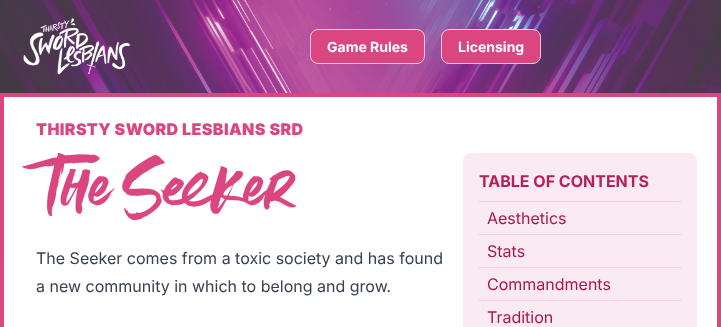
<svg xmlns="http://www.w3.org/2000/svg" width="721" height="327">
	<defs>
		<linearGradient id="g1" gradientUnits="userSpaceOnUse" x1="360" y1="93" x2="361" y2="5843"><stop offset="0" stop-color="#DC4680" /><stop offset="1" stop-color="#EF6733" /></linearGradient>
	</defs>
	<rect width="100%" height="100%" fill="#FFFFFF" />
	<image x="0" y="0" width="721" height="93" href="assets/img1.png" />
	<image x="23" y="18" width="107" height="57" href="assets/img2.png" />
	<rect x="310.5" y="29.5" width="114" height="34" rx="7.5" fill="#DC4680" stroke="#F4CCDD" />
	<text x="327" y="52" font-family="Inter" font-size="14" font-weight="700" fill="#FFFFFF">Game Rules</text>
	<rect x="441.5" y="29.5" width="99" height="34" rx="7.5" fill="#DC4680" stroke="#F4CCDD" />
	<text x="458" y="52" font-family="Inter" font-size="14" font-weight="700" fill="#FFFFFF">Licensing</text>
	<rect x="0" y="93" width="721" height="234" fill="url(#g1)" />
	<rect x="4" y="97" width="713" height="230" fill="#FFFFFF" />
	<text x="36" y="135" font-family="Inter" font-size="16" font-weight="900" letter-spacing="0.4" fill="#DC4680">THIRSTY SWORD LESBIANS SRD</text>
	<image x="22" y="153" width="275" height="67" href="assets/img3.png" />
	<g font-family="Inter" font-size="16" fill="#374151">
		<text x="36" y="264">The Seeker comes from a toxic society and has found</text>
		<text x="36" y="292">a new community in which to belong and grow.</text>
	</g>
	<rect x="463" y="153" width="234" height="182" rx="8" fill="#FAEAF1" />
	<rect x="479" y="201" width="202" height="1" fill="#F4CCDD" />
	<text x="479" y="187" font-family="Inter" font-size="16" font-weight="700" fill="#B4225B">TABLE OF CONTENTS</text>
	<rect x="479" y="234" width="202" height="1" fill="#F4CCDD" />
	<text x="487" y="224" font-family="Inter" font-size="16" fill="#AC1650">Aesthetics</text>
	<rect x="479" y="267" width="202" height="1" fill="#F4CCDD" />
	<text x="487" y="257" font-family="Inter" font-size="16" fill="#AC1650">Stats</text>
	<rect x="479" y="300" width="202" height="1" fill="#F4CCDD" />
	<g font-family="Inter" font-size="16" fill="#AC1650">
		<text x="487" y="290">Commandments</text>
		<text x="487" y="323">Tradition</text>
	</g>
</svg>
